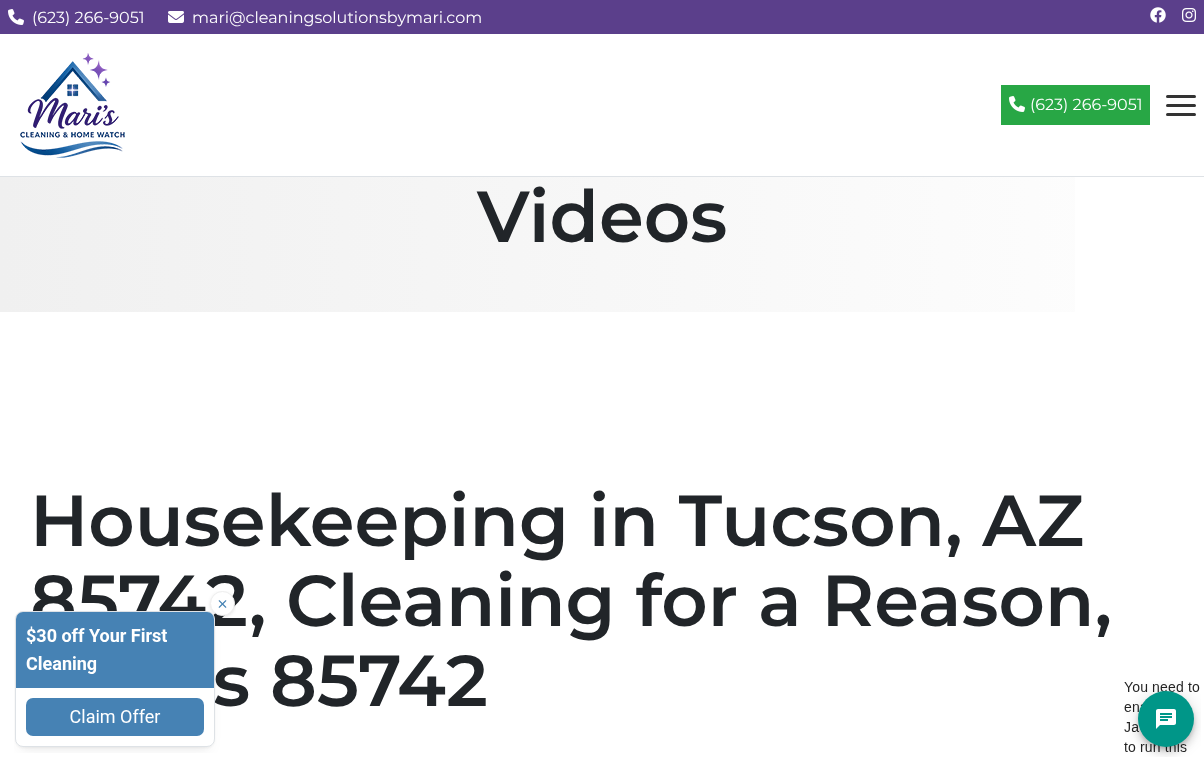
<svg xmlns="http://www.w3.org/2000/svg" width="1204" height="757">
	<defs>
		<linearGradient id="g1" gradientUnits="userSpaceOnUse" x1="0" y1="156" x2="1204" y2="156"><stop offset="0" stop-color="#F0F0F0" /><stop offset="1" stop-color="#FEFEFE" /></linearGradient>
	</defs>
	<rect width="100%" height="100%" fill="#FFFFFF" />
	<rect x="0" y="0" width="1204" height="34" fill="#5B3F8B" />
	<image x="8" y="9" width="16" height="16" href="assets/img1.png" />
	<text x="32" y="23" font-family="Montserrat" font-size="16" fill="#FFFFFF">(623) 266-9051</text>
	<image x="168" y="11" width="16" height="12" href="assets/img2.png" />
	<text x="192" y="23" font-family="Montserrat" font-size="16" fill="#FFFFFF">mari@cleaningsolutionsbymari.com</text>
	<image x="1150" y="7" width="16" height="16" href="assets/img3.png" />
	<image x="1182" y="8" width="14" height="14" href="assets/img4.png" />
	<rect x="0" y="176" width="1204" height="1" fill="#DEE2E6" />
	<image x="20" y="53" width="105" height="105" href="assets/img5.png" />
	<rect x="1001" y="85" width="149" height="40" fill="#28A745" />
	<image x="1009" y="96" width="16" height="16" href="assets/img6.png" />
	<text x="1030" y="110" font-family="Montserrat" font-size="16" fill="#FFFFFF">(623) 266-9051</text>
	<rect x="1166" y="95" width="30" height="3" rx="1.5" fill="#333333" />
	<rect x="1166" y="104" width="30" height="3" rx="1.5" fill="#333333" />
	<rect x="1166" y="113" width="30" height="3" rx="1.5" fill="#333333" />
	<rect x="0" y="177" width="1075" height="135" fill="url(#g1)" />
	<g font-family="Montserrat" font-size="72" font-weight="600" fill="#212529">
		<text x="477" y="242">Videos</text>
		<text x="30" y="546">Housekeeping in Tucson, AZ</text>
		<text x="30" y="626">85742, Cleaning for a Reason,</text>
		<text x="213" y="706">s 85742</text>
	</g>
	<image x="14" y="591" width="222" height="162" href="assets/img7.png" />
	<image x="1124" y="681" width="77" height="76" href="assets/img8.png" />
</svg>
